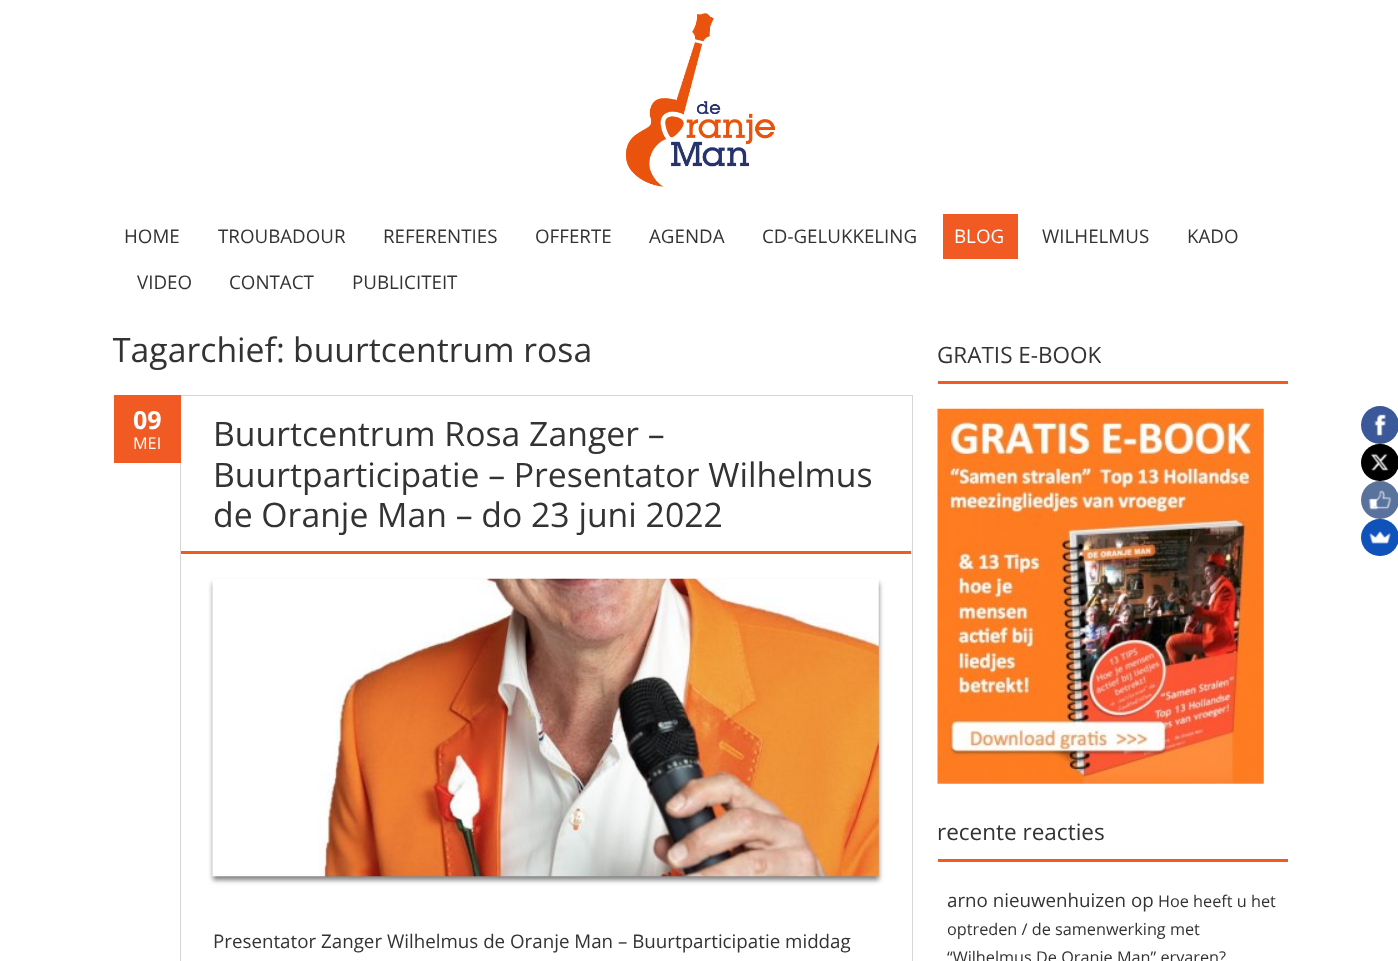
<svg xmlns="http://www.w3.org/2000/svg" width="1398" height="961">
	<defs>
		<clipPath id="clip1"><rect x="113" y="330" width="800" height="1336" /></clipPath>
	</defs>
	<rect width="100%" height="100%" fill="#FFFFFF" />
	<image x="626" y="13" width="149" height="174" href="assets/img1.png" />
	<g font-family="Open Sans" font-size="18.75" fill="#333333">
		<text x="124" y="243">HOME</text>
		<text x="218" y="243">TROUBADOUR</text>
		<text x="383" y="243">REFERENTIES</text>
		<text x="535" y="243">OFFERTE</text>
		<text x="649" y="243">AGENDA</text>
		<text x="762" y="243">CD-GELUKKELING</text>
	</g>
	<rect x="943" y="214" width="75" height="45" fill="#F15A23" />
	<text x="954" y="243" font-family="Open Sans" font-size="18.75" fill="#FFFFFF">BLOG</text>
	<g font-family="Open Sans" font-size="18.75" fill="#333333">
		<text x="1042" y="243">WILHELMUS</text>
		<text x="1187" y="243">KADO</text>
		<text x="137" y="289">VIDEO</text>
		<text x="229" y="289">CONTACT</text>
		<text x="352" y="289">PUBLICITEIT</text>
	</g>
	<g clip-path="url(#clip1)">
		<text x="112" y="362" font-family="Open Sans" font-size="33.75" fill="#333333">Tagarchief:</text>
	</g>
	<text x="293" y="362" font-family="Open Sans" font-size="33.75" fill="#333333">buurtcentrum rosa</text>
	<rect x="180.5" y="395.5" width="732" height="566" fill="none" stroke="#D6D6D6" />
	<rect x="114" y="395" width="67" height="68" fill="#F15A23" />
	<text x="133" y="429" font-family="Open Sans" font-size="25" font-weight="700" fill="#FFFFFF">09</text>
	<text x="133" y="449" font-family="Open Sans" font-size="16.25" fill="#FFFFFF">MEI</text>
	<rect x="181" y="551" width="730" height="3" fill="#F15A23" />
	<g font-family="Open Sans" font-size="33.75" fill="#333333">
		<text x="213" y="446">Buurtcentrum Rosa Zanger –</text>
		<text x="213" y="487">Buurtparticipatie – Presentator Wilhelmus</text>
		<text x="213" y="527">de Oranje Man – do 23 juni 2022</text>
	</g>
	<rect x="213" y="583" width="666" height="297" fill="#000000" fill-opacity="0.5" filter="blur(2.5px)" />
	<image x="212" y="578" width="667" height="299" href="assets/img2.png" />
	<text x="213" y="948" font-family="Open Sans" font-size="18.75" fill="#333333">Presentator Zanger Wilhelmus de Oranje Man – Buurtparticipatie middag</text>
	<rect x="938" y="381" width="350" height="3" fill="#F15A23" />
	<text x="937" y="363" font-family="Open Sans" font-size="22.5" fill="#333333">GRATIS E-BOOK</text>
	<image x="937" y="408" width="327" height="376" href="assets/img3.png" />
	<rect x="938" y="859" width="350" height="3" fill="#F15A23" />
	<text x="937" y="840" font-family="Open Sans" font-size="22.5" fill="#333333">recente reacties</text>
	<text x="947" y="907" font-family="Open Sans" font-size="18.75" fill="#333333">arno nieuwenhuizen op</text>
	<g font-family="Open Sans" font-size="16.25" fill="#333333">
		<text x="1158" y="907">Hoe heeft u het</text>
		<text x="947" y="935">optreden / de samenwerking met</text>
		<text x="947" y="963">“Wilhelmus De Oranje Man” ervaren?</text>
	</g>
	<circle cx="1380" cy="425" r="19" fill="#3B5998" />
	<image x="1374" y="414" width="12" height="22" href="assets/img4.png" />
	<rect x="1361" y="444" width="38" height="37" rx="18.5" fill="#000000" />
	<image x="1370" y="453" width="19" height="18" href="assets/img5.png" />
	<circle cx="1380" cy="500" r="19" fill="#5A739D" />
	<image x="1368" y="490" width="24" height="20" href="assets/img6.png" />
	<rect x="1361" y="519" width="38" height="37" rx="18.5" fill="#0F52BA" />
	<image x="1369" y="531" width="22" height="13" href="assets/img7.png" />
</svg>
